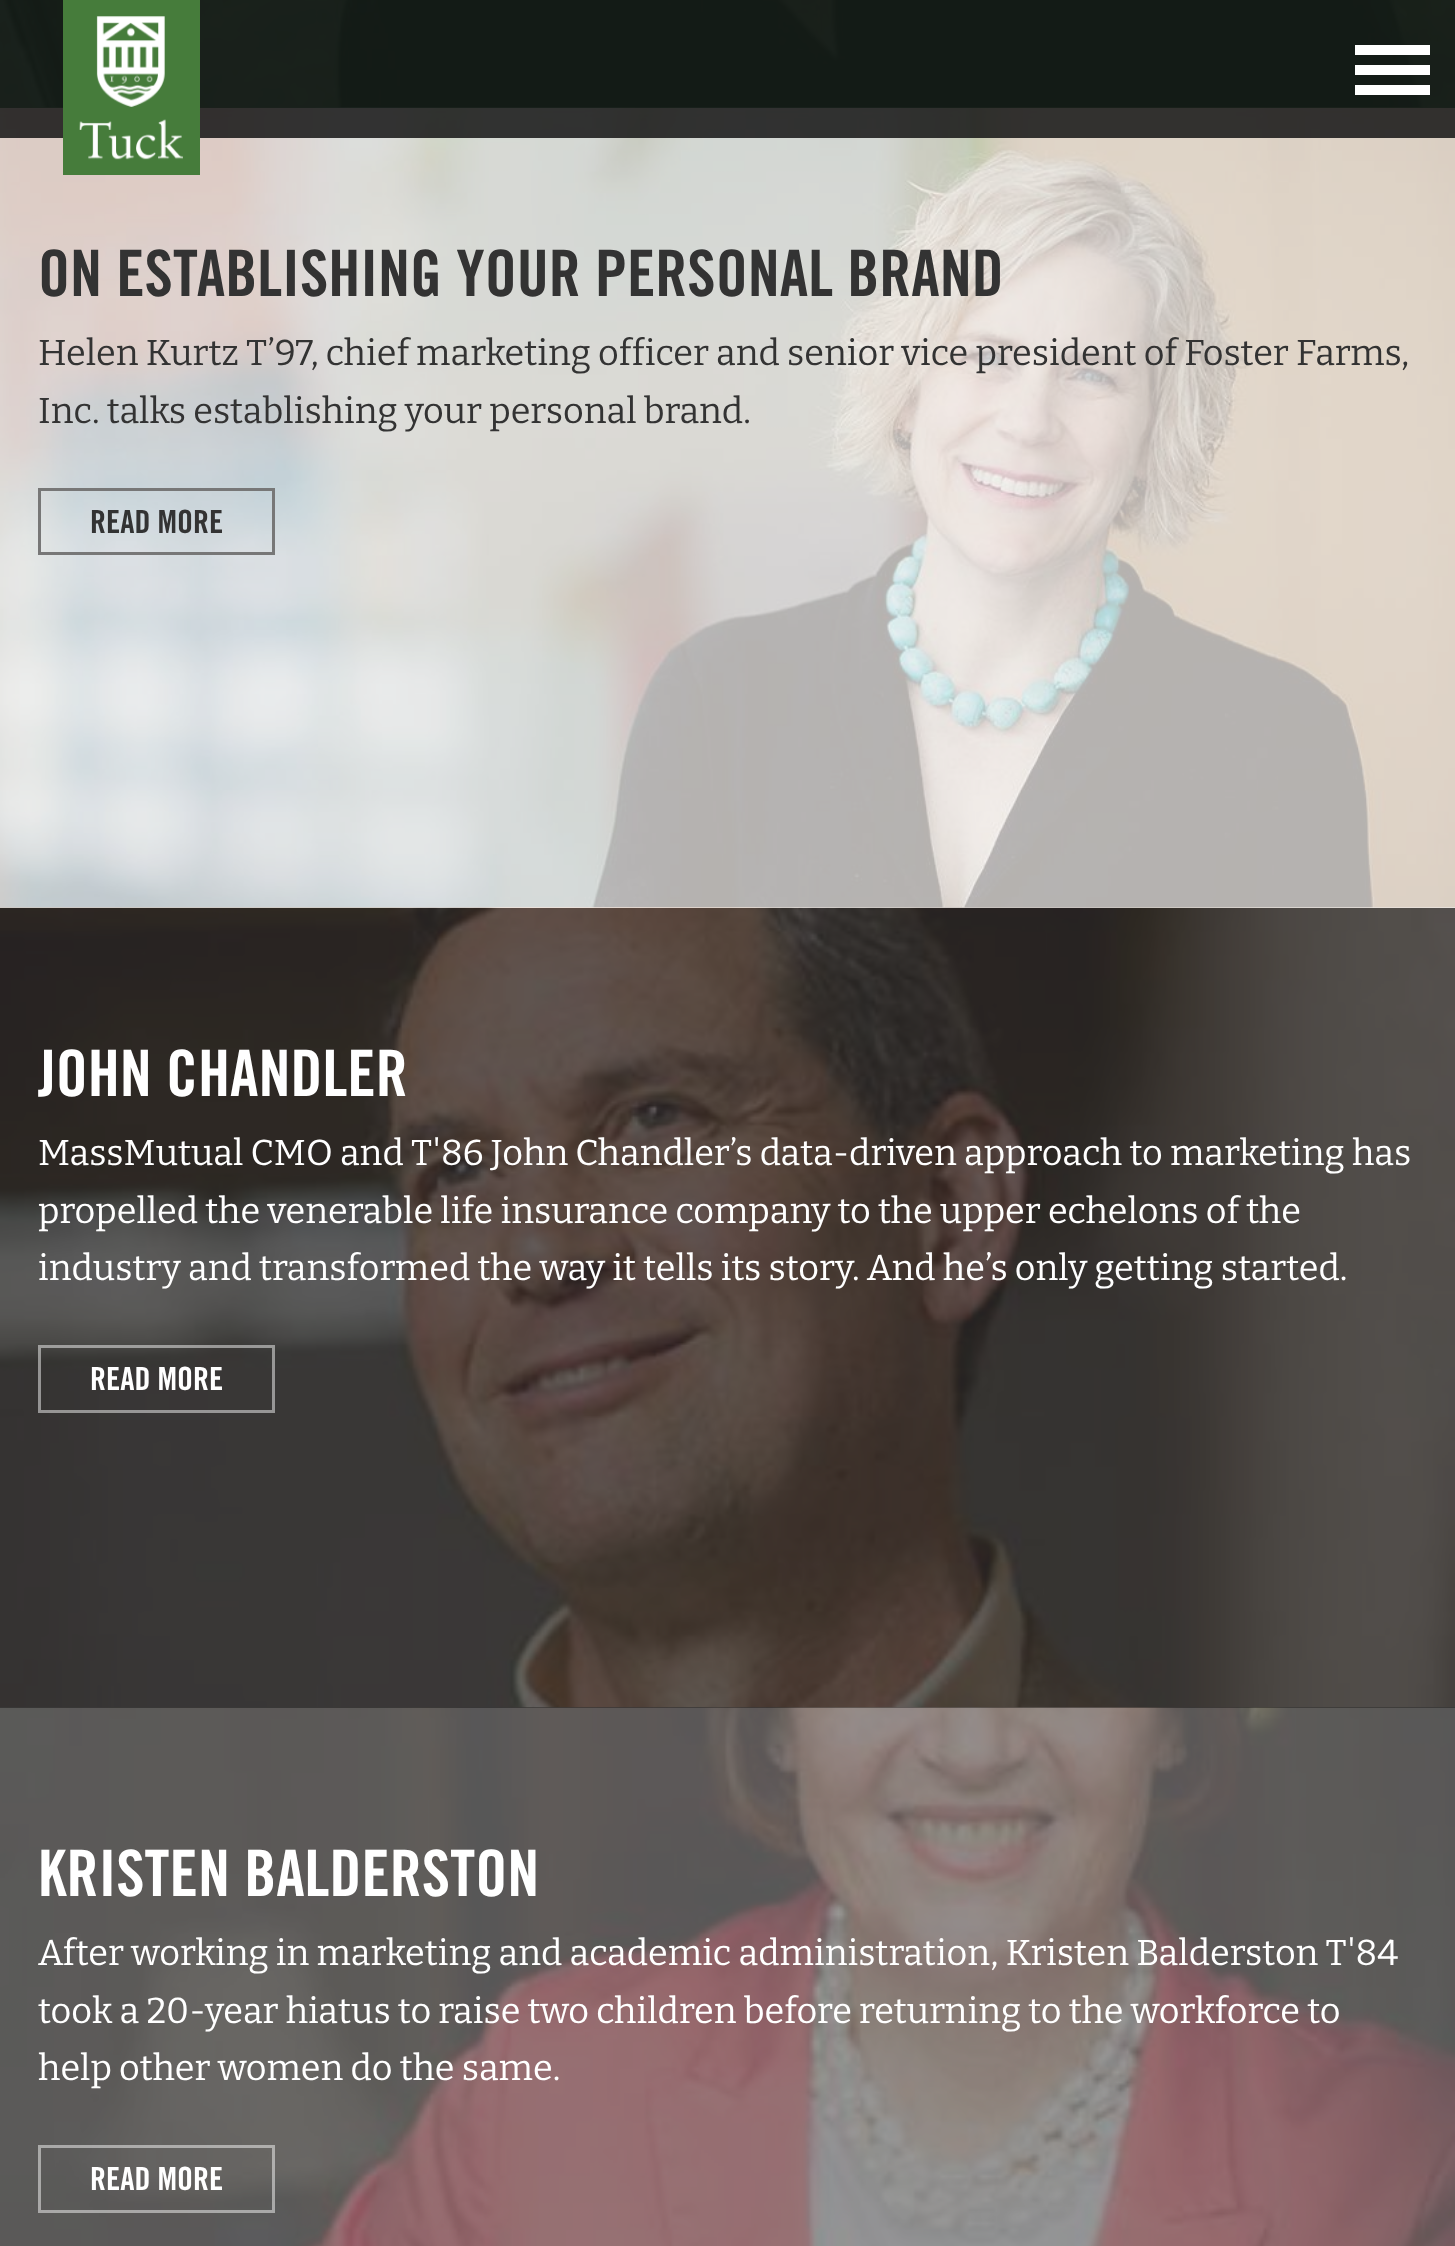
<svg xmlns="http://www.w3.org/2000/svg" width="1455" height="2246">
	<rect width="100%" height="100%" fill="#FFFFFF" />
	<image x="0" y="0" width="1455" height="108" href="assets/img2.png" />
	<image x="0" y="107" width="1455" height="801" href="assets/img3.png" />
	<rect x="0" y="0" width="1455" height="108" fill="#15592F" fill-opacity="0.75" />
	<image x="0" y="907" width="1455" height="801" href="assets/img4.png" />
	<rect x="0" y="108" width="1455" height="800" fill="#F1EEE9" fill-opacity="0.75" />
	<rect x="0" y="0" width="1455" height="138" fill="#141414" fill-opacity="0.85" />
	<rect x="63" y="0" width="137" height="175" fill="#467C3B" />
	<image x="79" y="16" width="104" height="144" href="assets/img1.png" />
	<rect x="1355" y="45" width="75" height="10" fill="#FFFFFF" />
	<rect x="1355" y="65" width="75" height="10" fill="#FFFFFF" />
	<rect x="1355" y="85" width="75" height="10" fill="#FFFFFF" />
	<text x="38" y="296" font-family="'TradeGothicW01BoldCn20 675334'" font-size="64" font-weight="700" fill="#333333">ON ESTABLISHING YOUR PERSONAL BRAND</text>
	<g font-family="Bitter" font-size="36" fill="#333333">
		<text x="38" y="365">Helen Kurtz T’97, chief marketing officer and senior vice president of Foster Farms,</text>
		<text x="38" y="423">Inc. talks establishing your personal brand.</text>
	</g>
	<rect x="39.5" y="489.5" width="234" height="64" fill="none" stroke="#777777" stroke-width="3" />
	<text x="90" y="533" font-family="'TradeGothicW01BoldCn20 675334'" font-size="32" font-weight="700" fill="#333333">READ MORE</text>
	<image x="0" y="1707" width="1455" height="539" href="assets/img5.png" />
	<rect x="0" y="908" width="1455" height="800" fill="#2D2D2D" fill-opacity="0.75" />
	<text x="38" y="1096" font-family="'TradeGothicW01BoldCn20 675334'" font-size="64" font-weight="700" fill="#FFFFFF">JOHN CHANDLER</text>
	<g font-family="Bitter" font-size="36" fill="#FFFFFF">
		<text x="38" y="1165">MassMutual CMO and T'86 John Chandler’s data-driven approach to marketing has</text>
		<text x="38" y="1223">propelled the venerable life insurance company to the upper echelons of the</text>
		<text x="38" y="1280">industry and transformed the way it tells its story. And he’s only getting started.</text>
	</g>
	<rect x="39.5" y="1346.5" width="234" height="65" fill="none" stroke="#FFFFFF" stroke-opacity="0.48" stroke-width="3" />
	<text x="90" y="1390" font-family="'TradeGothicW01BoldCn20 675334'" font-size="32" font-weight="700" fill="#FFFFFF">READ MORE</text>
	<text x="38" y="1896" font-family="'TradeGothicW01BoldCn20 675334'" font-size="64" font-weight="700" fill="#FFFFFF">KRISTEN BALDERSTON</text>
	<g font-family="Bitter" font-size="36" fill="#FFFFFF">
		<text x="38" y="1965">After working in marketing and academic administration, Kristen Balderston T'84</text>
		<text x="38" y="2023">took a 20-year hiatus to raise two children before returning to the workforce to</text>
		<text x="38" y="2080">help other women do the same.</text>
	</g>
	<rect x="39.5" y="2146.5" width="234" height="65" fill="none" stroke="#FFFFFF" stroke-opacity="0.48" stroke-width="3" />
	<text x="90" y="2190" font-family="'TradeGothicW01BoldCn20 675334'" font-size="32" font-weight="700" fill="#FFFFFF">READ MORE</text>
</svg>
